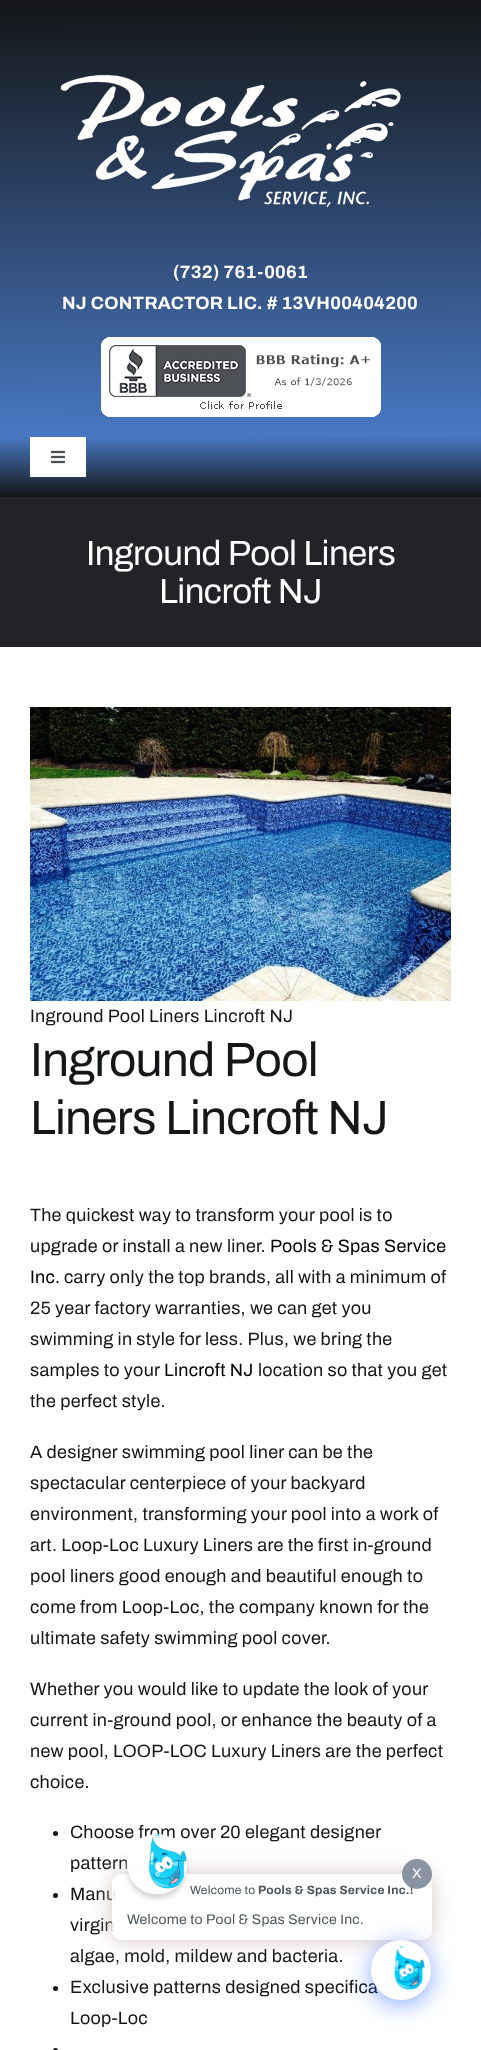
<svg xmlns="http://www.w3.org/2000/svg" width="481" height="2050">
	<defs>
		<linearGradient id="g1" gradientUnits="userSpaceOnUse" x1="240" y1="0" x2="241" y2="437"><stop offset="0" stop-color="#141617" /><stop offset="1" stop-color="#4878C3" /></linearGradient>
		<linearGradient id="g2" gradientUnits="userSpaceOnUse" x1="241" y1="437" x2="241" y2="497"><stop offset="0" stop-color="#4878C3" /><stop offset="1" stop-color="#141617" /></linearGradient>
		<clipPath id="clip1"><path d="M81 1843H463V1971H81ZM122 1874H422C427.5 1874 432 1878.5 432 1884V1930C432 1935.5 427.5 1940 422 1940H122C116.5 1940 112 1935.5 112 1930V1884C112 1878.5 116.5 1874 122 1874Z" clip-rule="evenodd" /></clipPath>
		<clipPath id="clip2"><path d="M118 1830H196V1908H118ZM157 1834C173.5 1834 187 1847.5 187 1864C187 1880.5 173.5 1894 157 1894C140.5 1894 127 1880.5 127 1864C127 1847.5 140.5 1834 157 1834Z" clip-rule="evenodd" /></clipPath>
	</defs>
	<rect width="100%" height="100%" fill="#FFFFFF" />
	<rect x="0" y="0" width="481" height="437" fill="url(#g1)" />
	<image x="60" y="74" width="341" height="134" href="assets/img1.png" />
	<g font-family="Archivo" font-size="18" font-weight="700" letter-spacing="0.27" fill="#FFFFFF">
		<text x="173" y="278">(732) 761-0061</text>
		<text x="62" y="309">NJ CONTRACTOR LIC. # 13VH00404200</text>
	</g>
	<image x="101" y="337" width="280" height="80" href="assets/img2.png" />
	<rect x="0" y="437" width="481" height="60" fill="url(#g2)" />
	<rect x="30" y="437" width="56" height="40" fill="#FFFFFF" />
	<image x="51" y="450" width="14" height="14" href="assets/img3.png" />
	<rect x="0" y="497" width="481" height="150" fill="#212326" />
	<g font-family="Archivo" font-size="35" letter-spacing="-0.5" fill="#FFFFFF">
		<text x="86" y="565">Inground Pool Liners</text>
		<text x="159" y="603">Lincroft NJ</text>
	</g>
	<image x="30" y="707" width="421" height="294" href="assets/img4.png" />
	<text x="30" y="1022" font-family="Archivo" font-size="18" letter-spacing="0.27" fill="#141617">Inground Pool Liners Lincroft NJ</text>
	<g font-family="Archivo" font-size="48" letter-spacing="-0.75" fill="#141617">
		<text x="30" y="1076">Inground Pool</text>
		<text x="30" y="1134">Liners Lincroft NJ</text>
	</g>
	<g font-family="Archivo" font-size="18" letter-spacing="0.27" fill="#141617">
		<text x="30" y="1221">The quickest way to transform your pool is to</text>
		<text x="30" y="1252">upgrade or install a new liner.</text>
	</g>
	<g font-family="Archivo" font-size="18" letter-spacing="0.27" fill="#000000">
		<text x="270" y="1252">Pools &amp; Spas Service</text>
		<text x="30" y="1283">Inc.</text>
	</g>
	<g font-family="Archivo" font-size="18" letter-spacing="0.27" fill="#141617">
		<text x="64" y="1283">carry only the top brands, all with a minimum of</text>
		<text x="30" y="1314">25 year factory warranties, we can get you</text>
		<text x="30" y="1345">swimming in style for less. Plus, we bring the</text>
		<text x="30" y="1376">samples to your</text>
	</g>
	<text x="164" y="1376" font-family="Archivo" font-size="18" letter-spacing="0.27" fill="#000000">Lincroft NJ</text>
	<g font-family="Archivo" font-size="18" letter-spacing="0.27" fill="#141617">
		<text x="258" y="1376">location so that you get</text>
		<text x="30" y="1407">the perfect style.</text>
		<text x="30" y="1458">A designer swimming pool liner can be the</text>
		<text x="30" y="1489">spectacular centerpiece of your backyard</text>
		<text x="30" y="1520">environment, transforming your pool into a work of</text>
		<text x="30" y="1551">art. Loop-Loc Luxury Liners are the first in-ground</text>
		<text x="30" y="1582">pool liners good enough and beautiful enough to</text>
		<text x="30" y="1613">come from Loop-Loc, the company known for the</text>
		<text x="30" y="1644">ultimate safety swimming pool cover.</text>
		<text x="30" y="1695">Whether you would like to update the look of your</text>
		<text x="30" y="1726">current in-ground pool, or enhance the beauty of a</text>
		<text x="30" y="1757">new pool, LOOP-LOC Luxury Liners are the perfect</text>
		<text x="30" y="1788">choice.</text>
	</g>
	<circle cx="55.5" cy="1833.5" r="2.5" fill="#141617" />
	<g font-family="Archivo" font-size="18" letter-spacing="0.27" fill="#141617">
		<text x="70" y="1838">Choose from over 20 elegant designer</text>
		<text x="70" y="1869">pattern</text>
	</g>
	<circle cx="55.5" cy="1895.5" r="2.5" fill="#141617" />
	<g font-family="Archivo" font-size="18" letter-spacing="0.27" fill="#141617">
		<text x="70" y="1900">Manu</text>
		<text x="70" y="1931">virgin</text>
		<text x="70" y="1962">algae, mold, mildew and bacteria.</text>
	</g>
	<circle cx="55.5" cy="1988.5" r="2.5" fill="#141617" />
	<g font-family="Archivo" font-size="18" letter-spacing="0.27" fill="#141617">
		<text x="70" y="1993">Exclusive patterns designed specifica</text>
		<text x="70" y="2024">Loop-Loc</text>
	</g>
	<circle cx="55.5" cy="2050.5" r="2.5" fill="#141617" />
	<g clip-path="url(#clip1)">
		<rect x="112" y="1874" width="320" height="66" rx="10" fill="#CEBDBD" fill-opacity="0.9" filter="blur(10px)" />
	</g>
	<rect x="112" y="1874" width="320" height="66" rx="10" fill="#FFFFFF" fill-opacity="0.9" />
	<text x="258" y="1894" font-family="Archivo" font-size="12" font-weight="700" letter-spacing="0.27" fill="#4B555E">Pools &amp; Spas Service Inc.!</text>
	<circle cx="417" cy="1874" r="15" fill="#7D8999" fill-opacity="0.9" />
	<text x="412" y="1878" font-family="Archivo" font-size="14" letter-spacing="0.27" fill="#FFFFFF">X</text>
	<g clip-path="url(#clip2)">
		<rect x="127" y="1839" width="60" height="60" rx="30" fill="#D5D5D5" fill-opacity="0.9" filter="blur(2.5px)" />
	</g>
	<circle cx="157" cy="1864" r="30" fill="#FFFFFF" fill-opacity="0.9" />
	<image x="149" y="1834" width="38" height="55" href="assets/img5.png" />
	<text x="190" y="1894" font-family="Archivo" font-size="12" letter-spacing="0.27" fill="#4B555E">Welcome to</text>
	<text x="127" y="1924" font-family="Archivo" font-size="14" letter-spacing="0.27" fill="#4B555E">Welcome to Pool &amp; Spas Service Inc.</text>
	<rect x="371" y="1944" width="60" height="60" rx="30" fill="#004DFF" fill-opacity="0.5" filter="blur(12px)" />
	<circle cx="401" cy="1970" r="30" fill="#FFFFFF" />
	<image x="394" y="1946" width="31" height="45" href="assets/img6.png" />
</svg>
